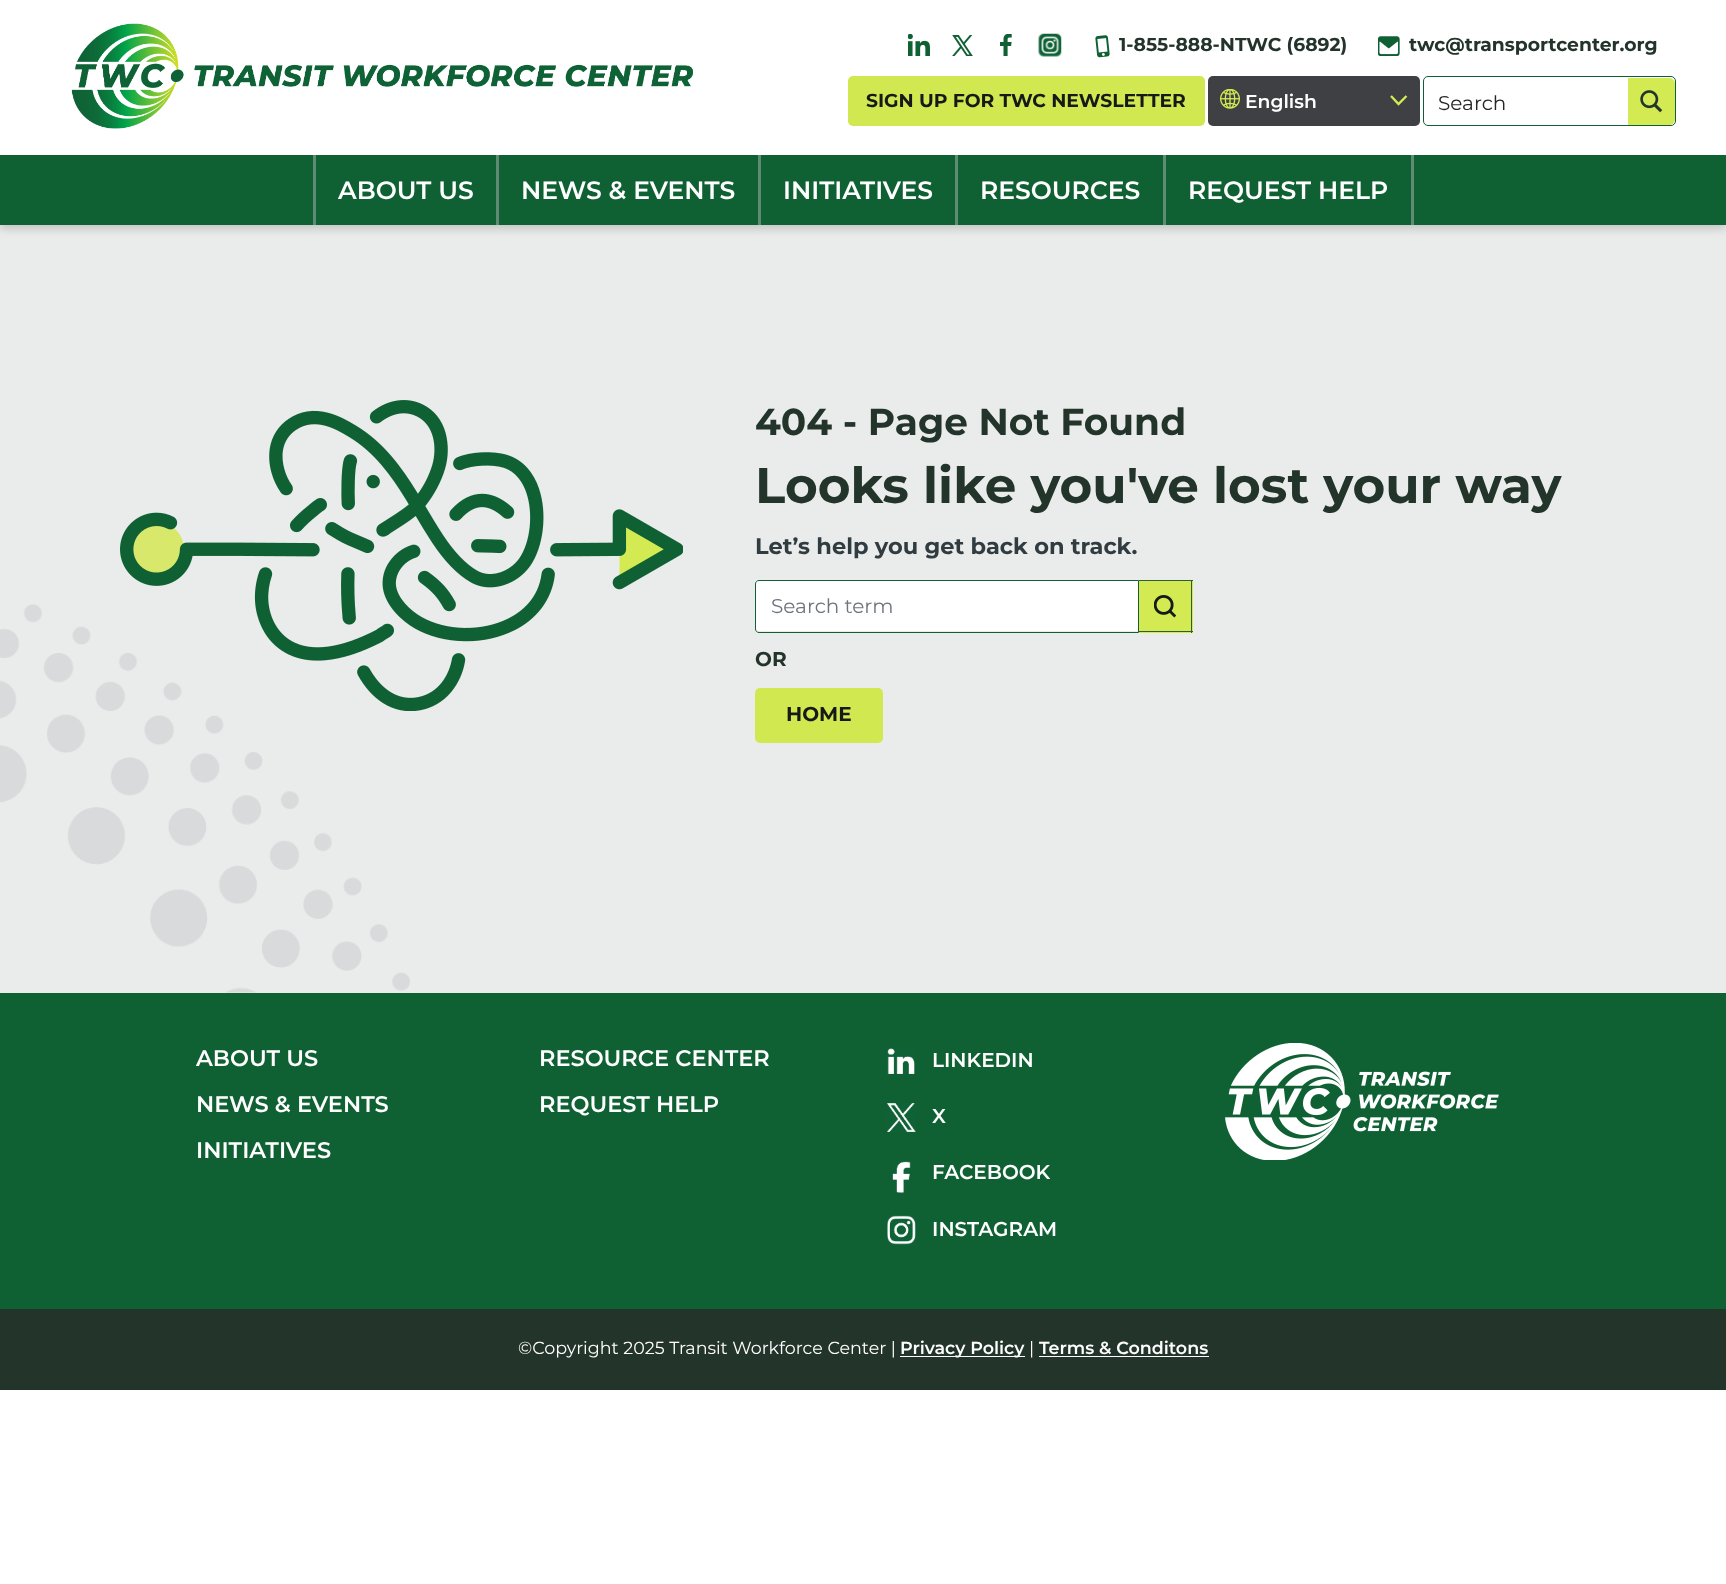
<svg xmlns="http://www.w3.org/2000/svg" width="1726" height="1584">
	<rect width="100%" height="100%" fill="#FFFFFF" />
	<rect x="0" y="225" width="1726" height="768" fill="#EAEBEB" />
	<rect x="0" y="4" width="1726" height="225" fill="#000000" fill-opacity="0.16" filter="blur(4px)" />
	<rect x="0" y="0" width="1726" height="155" fill="#FFFFFF" />
	<image x="71" y="23" width="622" height="106" href="assets/img1.png" />
	<image x="908" y="34" width="22" height="22" href="assets/img2.png" />
	<image x="952" y="35" width="21" height="21" href="assets/img3.png" />
	<image x="1000" y="34" width="12" height="22" href="assets/img4.png" />
	<image x="1038" y="33" width="24" height="24" href="assets/img5.png" />
	<image x="1095" y="35" width="15" height="23" href="assets/img6.png" />
	<text x="1119" y="51" font-family="Montserrat" font-size="18.75" font-weight="700" fill="#23342B">1-855-888-NTWC (6892)</text>
	<image x="1378" y="36" width="22" height="20" href="assets/img7.png" />
	<text x="1409" y="51" font-family="Montserrat" font-size="18.75" font-weight="700" fill="#23342B">twc@transportcenter.org</text>
	<rect x="848" y="76" width="357" height="50" rx="5" fill="#D1E851" />
	<text x="866" y="107" font-family="Montserrat" font-size="18.75" font-weight="700" fill="#151917">SIGN UP FOR TWC NEWSLETTER</text>
	<rect x="1208" y="76" width="212" height="50" rx="5" fill="#3E4043" />
	<path d="M1391 96L1398.5 104L1406.5 96" fill="none" stroke="#D3EA52" stroke-width="2.4" />
	<image x="1220" y="89" width="20" height="20" href="assets/img8.png" />
	<text x="1245" y="108" font-family="Montserrat" font-size="18.75" font-weight="600" fill="#FFFFFF">English</text>
	<rect x="1423.5" y="76.5" width="252" height="49" rx="4.5" fill="none" stroke="#0F6134" />
	<text x="1438" y="110" font-family="Montserrat" font-size="20" fill="#262626">Search</text>
	<path d="M1628 78H1669C1672.5 78 1675 80.5 1675 84V119C1675 122.5 1672.5 125 1669 125H1628Z" fill="#D3EA52" />
	<image x="1640" y="90" width="23" height="23" href="assets/img9.png" />
	<rect x="0" y="155" width="1726" height="70" fill="#0F6134" />
	<rect x="496" y="155" width="3" height="70" fill="#5E8B72" />
	<rect x="313" y="155" width="3" height="70" fill="#5E8B72" />
	<text x="338" y="199" font-family="Montserrat" font-size="25" font-weight="600" fill="#FFFFFF">ABOUT US</text>
	<rect x="758" y="155" width="3" height="70" fill="#5E8B72" />
	<text x="521" y="199" font-family="Montserrat" font-size="25" font-weight="600" fill="#FFFFFF">NEWS &amp; EVENTS</text>
	<rect x="955" y="155" width="3" height="70" fill="#5E8B72" />
	<text x="783" y="199" font-family="Montserrat" font-size="25" font-weight="600" fill="#FFFFFF">INITIATIVES</text>
	<rect x="1163" y="155" width="3" height="70" fill="#5E8B72" />
	<text x="980" y="199" font-family="Montserrat" font-size="25" font-weight="600" fill="#FFFFFF">RESOURCES</text>
	<rect x="1411" y="155" width="3" height="70" fill="#5E8B72" />
	<text x="1188" y="199" font-family="Montserrat" font-size="25" font-weight="600" fill="#FFFFFF">REQUEST HELP</text>
	<image x="0" y="604" width="410" height="389" href="assets/img10.png" />
	<image x="120" y="400" width="563" height="311" href="assets/img11.png" />
	<text x="755" y="435" font-family="Montserrat" font-size="37.5" font-weight="700" fill="#23342B">404 - Page Not Found</text>
	<text x="755" y="503" font-family="Montserrat" font-size="50" font-weight="700" fill="#23342B">Looks like you've lost your way</text>
	<text x="755" y="554" font-family="Montserrat" font-size="22.5" font-weight="700" fill="#313C40">Let’s help you get back on track.</text>
	<path d="M758.5 581H1138V631H758.5C757 631 756 630 756 628.5V583.5C756 582 757 581 758.5 581Z" fill="#FFFFFF" />
	<path d="M759 580.5H1138.5V632.5H759C757 632.5 755.5 631 755.5 629V584C755.5 582 757 580.5 759 580.5Z" fill="none" stroke="#0F6134" />
	<text x="771" y="613" font-family="Montserrat" font-size="20" fill="#6C757D">Search term</text>
	<rect x="1139" y="581" width="54" height="52" fill="#D3EA52" />
	<rect x="1139" y="580" width="54" height="1" fill="#2C5F38" />
	<rect x="1191" y="580" width="1" height="53" fill="#2C5F38" />
	<rect x="1139" y="631" width="54" height="1" fill="#2C5F38" />
	<image x="1154" y="595" width="22" height="23" href="assets/img12.png" />
	<text x="755" y="666" font-family="Montserrat" font-size="20" font-weight="700" fill="#23342B">OR</text>
	<rect x="755" y="688" width="128" height="55" rx="5" fill="#D1E851" />
	<text x="786" y="721" font-family="Montserrat" font-size="20" font-weight="700" fill="#151917">HOME</text>
	<rect x="0" y="993" width="1726" height="316" fill="#0F6134" />
	<g font-family="Montserrat" font-size="22.5" font-weight="600" fill="#FFFFFF">
		<text x="196" y="1066">ABOUT US</text>
		<text x="196" y="1112">NEWS &amp; EVENTS</text>
		<text x="196" y="1158">INITIATIVES</text>
		<text x="539" y="1066">RESOURCE CENTER</text>
		<text x="539" y="1112">REQUEST HELP</text>
	</g>
	<image x="887" y="1048" width="28" height="26" href="assets/img13.png" />
	<text x="932" y="1067" font-family="Montserrat" font-size="20" font-weight="600" fill="#FFFFFF">LINKEDIN</text>
	<image x="887" y="1103" width="29" height="29" href="assets/img14.png" />
	<text x="932" y="1123" font-family="Montserrat" font-size="20" font-weight="600" fill="#FFFFFF">X</text>
	<image x="892" y="1161" width="19" height="32" href="assets/img15.png" />
	<text x="932" y="1179" font-family="Montserrat" font-size="20" font-weight="600" fill="#FFFFFF">FACEBOOK</text>
	<image x="887" y="1215" width="29" height="30" href="assets/img16.png" />
	<text x="932" y="1236" font-family="Montserrat" font-size="20" font-weight="600" fill="#FFFFFF">INSTAGRAM</text>
	<image x="1225" y="1043" width="274" height="117" href="assets/img17.png" />
	<rect x="0" y="1309" width="1726" height="81" fill="#23342B" />
	<text x="518" y="1354" font-family="Montserrat" font-size="17.5" fill="#FFFFFF">©Copyright 2025 Transit Workforce Center |</text>
	<rect x="900" y="1356" width="125" height="1" fill="#FFFFFF" />
	<text x="900" y="1354" font-family="Montserrat" font-size="17.5" font-weight="600" fill="#FFFFFF">Privacy Policy</text>
	<text x="1029" y="1354" font-family="Montserrat" font-size="17.5" fill="#FFFFFF">|</text>
	<text x="1039" y="1354" font-family="Montserrat" font-size="17.5" font-weight="600" fill="#FFFFFF">Terms &amp; Conditons</text>
	<rect x="1039" y="1356" width="170" height="1" fill="#FFFFFF" />
</svg>
